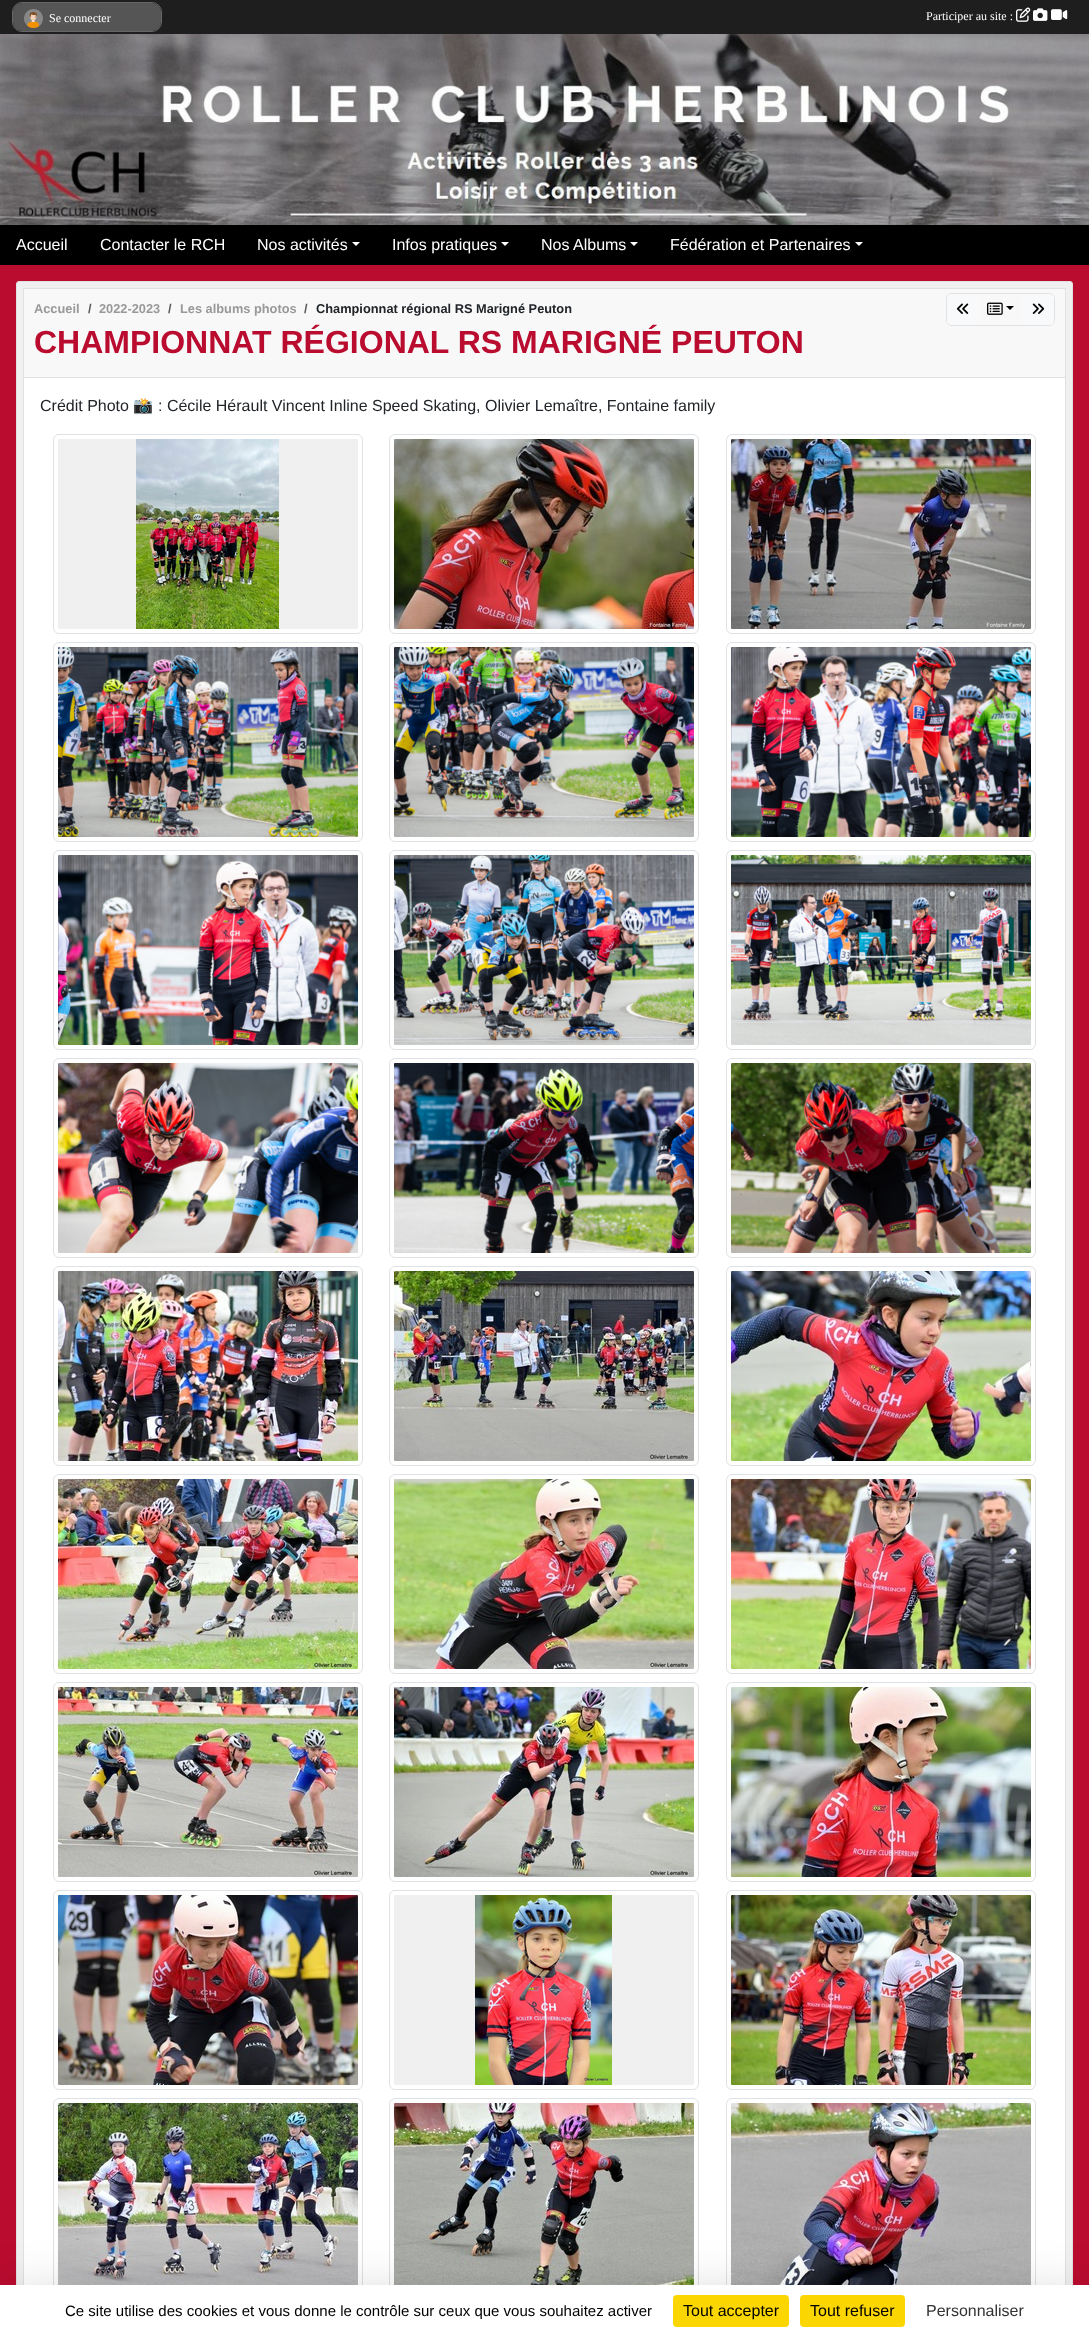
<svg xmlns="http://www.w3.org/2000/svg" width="1089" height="2337">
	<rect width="100%" height="100%" fill="#BA0C2F" />
	<rect x="0" y="0" width="1089" height="34" fill="#1E1E1E" />
	<rect x="12.5" y="2.5" width="149" height="29" rx="9.5" fill="none" stroke="#666666" />
	<rect x="13" y="3" width="148" height="28" rx="9" fill="#555555" />
	<image x="24" y="9" width="19" height="19" href="assets/img1.png" />
	<g font-family="Liberation Serif" font-size="12" fill="#FFFFFF">
		<text x="49" y="22">Se connecter</text>
		<text x="926" y="20">Participer au site :</text>
	</g>
	<image x="1016" y="7" width="15" height="15" href="assets/img2.png" />
	<image x="1033" y="8" width="15" height="13" href="assets/img3.png" />
	<image x="1051" y="9" width="17" height="11" href="assets/img4.png" />
	<image x="0" y="34" width="1089" height="191" href="assets/img5.png" />
	<rect x="0" y="225" width="1089" height="40" fill="#000000" />
	<g font-family="Liberation Sans" font-size="16" fill="#FFFFFF">
		<text x="16" y="250">Accueil</text>
		<text x="100" y="250">Contacter le RCH</text>
		<text x="257" y="250">Nos activités</text>
	</g>
	<path d="M352 242H360L356 246Z" fill="#FFFFFF" />
	<text x="392" y="250" font-family="Liberation Sans" font-size="16" fill="#FFFFFF">Infos pratiques</text>
	<path d="M501 242H509L505 246Z" fill="#FFFFFF" />
	<text x="541" y="250" font-family="Liberation Sans" font-size="16" fill="#FFFFFF">Nos Albums</text>
	<path d="M630 242H638L634 246Z" fill="#FFFFFF" />
	<text x="670" y="250" font-family="Liberation Sans" font-size="16" fill="#FFFFFF">Fédération et Partenaires</text>
	<path d="M855 242H863L859 246Z" fill="#FFFFFF" />
	<rect x="16.5" y="281.5" width="1056" height="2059" rx="2.5" fill="#F0F0F0" stroke="#E1E1E1" />
	<rect x="24" y="378" width="1041" height="1907" fill="#FFFFFF" />
	<rect x="23.5" y="288.5" width="1042" height="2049" fill="none" stroke="#E1E1E1" />
	<rect x="24" y="289" width="1041" height="88" fill="#F8F8F8" />
	<rect x="24" y="377" width="1041" height="1" fill="#E1E1E1" />
	<text x="34" y="313" font-family="Liberation Sans" font-size="12.8" font-weight="700" fill="#999999">Accueil</text>
	<text x="88" y="313" font-family="Liberation Sans" font-size="12.8" font-weight="700" fill="#575A5D">/</text>
	<text x="99" y="313" font-family="Liberation Sans" font-size="12.8" font-weight="700" fill="#999999">2022-2023</text>
	<text x="168" y="313" font-family="Liberation Sans" font-size="12.8" font-weight="700" fill="#575A5D">/</text>
	<text x="180" y="313" font-family="Liberation Sans" font-size="12.8" font-weight="700" fill="#999999">Les albums photos</text>
	<text x="304" y="313" font-family="Liberation Sans" font-size="12.8" font-weight="700" fill="#575A5D">/</text>
	<text x="316" y="313" font-family="Liberation Sans" font-size="12.8" font-weight="700" fill="#212529">Championnat régional RS Marigné Peuton</text>
	<rect x="946.5" y="293.5" width="108" height="32" rx="5.5" fill="none" stroke="#E1E1E1" />
	<path d="M951 294.5H978.5V324.5H951C949 324.5 947.5 323 947.5 321V298C947.5 296 949 294.5 951 294.5Z" fill="#F8F9FA" stroke="#F8F9FA" />
	<image x="956" y="303" width="13" height="11" href="assets/img6.png" />
	<image x="987" y="302" width="16" height="13" href="assets/img7.png" />
	<path d="M1006 306H1014L1010 310Z" fill="#000000" />
	<path d="M1022.5 294.5H1050C1052 294.5 1053.5 296 1053.5 298V321C1053.5 323 1052 324.5 1050 324.5H1022.5Z" fill="#F8F9FA" stroke="#F8F9FA" />
	<image x="1032" y="303" width="13" height="11" href="assets/img8.png" />
	<text x="34" y="353" font-family="Liberation Sans" font-size="32" font-weight="700" fill="#BA0C2F">CHAMPIONNAT RÉGIONAL RS MARIGNÉ PEUTON</text>
	<text x="40" y="411" font-family="Liberation Sans" font-size="16" fill="#212529">Crédit Photo</text>
	<text x="133" y="411" font-family="Noto Color Emoji" font-size="16" fill="#212529">📸</text>
	<text x="158" y="411" font-family="Liberation Sans" font-size="16" fill="#212529">: Cécile Hérault Vincent Inline Speed Skating, Olivier Lemaître, Fontaine family</text>
	<rect x="53.5" y="434.5" width="309" height="199" rx="5.5" fill="none" stroke="#DEE2E6" />
	<image x="58" y="439" width="300" height="190" href="assets/img9.png" />
	<rect x="389.5" y="434.5" width="309" height="199" rx="5.5" fill="none" stroke="#DEE2E6" />
	<image x="394" y="439" width="300" height="190" href="assets/img10.png" />
	<rect x="726.5" y="434.5" width="309" height="199" rx="5.5" fill="none" stroke="#DEE2E6" />
	<image x="731" y="439" width="300" height="190" href="assets/img11.png" />
	<rect x="53.5" y="642.5" width="309" height="199" rx="5.5" fill="none" stroke="#DEE2E6" />
	<image x="58" y="647" width="300" height="190" href="assets/img12.png" />
	<rect x="389.5" y="642.5" width="309" height="199" rx="5.5" fill="none" stroke="#DEE2E6" />
	<image x="394" y="647" width="300" height="190" href="assets/img13.png" />
	<rect x="726.5" y="642.5" width="309" height="199" rx="5.5" fill="none" stroke="#DEE2E6" />
	<image x="731" y="647" width="300" height="190" href="assets/img14.png" />
	<rect x="53.5" y="850.5" width="309" height="199" rx="5.5" fill="none" stroke="#DEE2E6" />
	<image x="58" y="855" width="300" height="190" href="assets/img15.png" />
	<rect x="389.5" y="850.5" width="309" height="199" rx="5.5" fill="none" stroke="#DEE2E6" />
	<image x="394" y="855" width="300" height="190" href="assets/img16.png" />
	<rect x="726.5" y="850.5" width="309" height="199" rx="5.5" fill="none" stroke="#DEE2E6" />
	<image x="731" y="855" width="300" height="190" href="assets/img17.png" />
	<rect x="53.5" y="1058.5" width="309" height="199" rx="5.5" fill="none" stroke="#DEE2E6" />
	<image x="58" y="1063" width="300" height="190" href="assets/img18.png" />
	<rect x="389.5" y="1058.5" width="309" height="199" rx="5.5" fill="none" stroke="#DEE2E6" />
	<image x="394" y="1063" width="300" height="190" href="assets/img19.png" />
	<rect x="726.5" y="1058.5" width="309" height="199" rx="5.5" fill="none" stroke="#DEE2E6" />
	<image x="731" y="1063" width="300" height="190" href="assets/img20.png" />
	<rect x="53.5" y="1266.5" width="309" height="199" rx="5.5" fill="none" stroke="#DEE2E6" />
	<image x="58" y="1271" width="300" height="190" href="assets/img21.png" />
	<rect x="389.5" y="1266.5" width="309" height="199" rx="5.5" fill="none" stroke="#DEE2E6" />
	<image x="394" y="1271" width="300" height="190" href="assets/img22.png" />
	<rect x="726.5" y="1266.5" width="309" height="199" rx="5.5" fill="none" stroke="#DEE2E6" />
	<image x="731" y="1271" width="300" height="190" href="assets/img23.png" />
	<rect x="53.5" y="1474.5" width="309" height="199" rx="5.5" fill="none" stroke="#DEE2E6" />
	<image x="58" y="1479" width="300" height="190" href="assets/img24.png" />
	<rect x="389.5" y="1474.5" width="309" height="199" rx="5.5" fill="none" stroke="#DEE2E6" />
	<image x="394" y="1479" width="300" height="190" href="assets/img25.png" />
	<rect x="726.5" y="1474.5" width="309" height="199" rx="5.5" fill="none" stroke="#DEE2E6" />
	<image x="731" y="1479" width="300" height="190" href="assets/img26.png" />
	<rect x="53.5" y="1682.5" width="309" height="199" rx="5.5" fill="none" stroke="#DEE2E6" />
	<image x="58" y="1687" width="300" height="190" href="assets/img27.png" />
	<rect x="389.5" y="1682.5" width="309" height="199" rx="5.5" fill="none" stroke="#DEE2E6" />
	<image x="394" y="1687" width="300" height="190" href="assets/img28.png" />
	<rect x="726.5" y="1682.5" width="309" height="199" rx="5.5" fill="none" stroke="#DEE2E6" />
	<image x="731" y="1687" width="300" height="190" href="assets/img29.png" />
	<rect x="53.5" y="1890.5" width="309" height="199" rx="5.5" fill="none" stroke="#DEE2E6" />
	<image x="58" y="1895" width="300" height="190" href="assets/img30.png" />
	<rect x="389.5" y="1890.5" width="309" height="199" rx="5.5" fill="none" stroke="#DEE2E6" />
	<image x="394" y="1895" width="300" height="190" href="assets/img31.png" />
	<rect x="726.5" y="1890.5" width="309" height="199" rx="5.5" fill="none" stroke="#DEE2E6" />
	<image x="731" y="1895" width="300" height="190" href="assets/img32.png" />
	<rect x="53.5" y="2098.5" width="309" height="199" rx="5.5" fill="none" stroke="#DEE2E6" />
	<image x="58" y="2103" width="300" height="182" href="assets/img33.png" />
	<rect x="389.5" y="2098.5" width="309" height="199" rx="5.5" fill="none" stroke="#DEE2E6" />
	<image x="394" y="2103" width="300" height="182" href="assets/img34.png" />
	<rect x="726.5" y="2098.5" width="309" height="199" rx="5.5" fill="none" stroke="#DEE2E6" />
	<image x="731" y="2103" width="300" height="182" href="assets/img35.png" />
	<rect x="0" y="2305" width="1089" height="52" fill="#000000" fill-opacity="0.25" filter="blur(30px)" />
	<rect x="0" y="2285" width="1089" height="52" fill="#FFFFFF" />
	<text x="65" y="2316" font-family="Liberation Sans" font-size="15" fill="#000000">Ce site utilise des cookies et vous donne le contrôle sur ceux que vous souhaitez activer</text>
	<rect x="673" y="2295" width="116" height="32" rx="4" fill="#FBD600" />
	<text x="683" y="2316" font-family="Liberation Sans" font-size="16" fill="#000000">Tout accepter</text>
	<rect x="800" y="2295" width="105" height="32" rx="4" fill="#FBD600" />
	<text x="810" y="2316" font-family="Liberation Sans" font-size="16" fill="#000000">Tout refuser</text>
	<text x="926" y="2316" font-family="Liberation Sans" font-size="16" fill="#333333">Personnaliser</text>
</svg>
